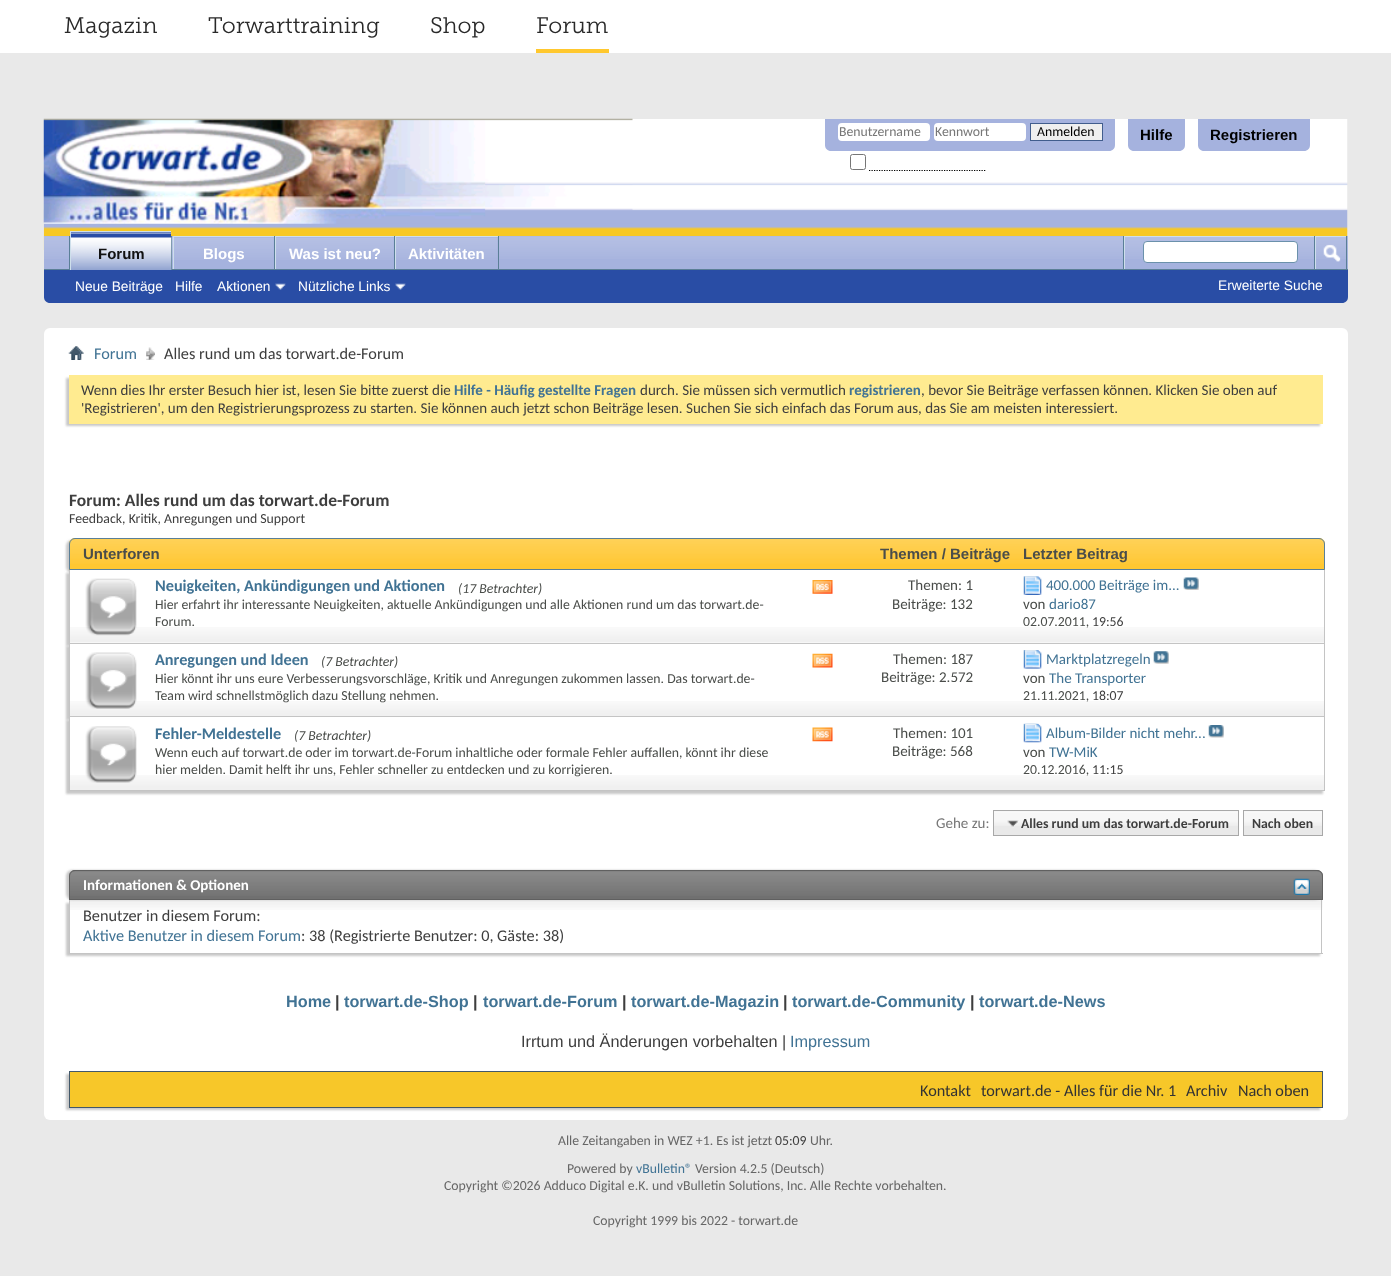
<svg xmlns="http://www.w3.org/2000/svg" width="1391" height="1276">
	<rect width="100%" height="100%" fill="#E9E9E9" />
	<rect x="0" y="0" width="1391" height="53" fill="#FFFFFF" />
	<g font-family="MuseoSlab" font-size="22.5" fill="#292929">
		<text x="64" y="33">Magazin</text>
		<text x="208" y="33">Torwarttraining</text>
		<text x="430" y="33">Shop</text>
	</g>
	<rect x="536" y="49" width="73" height="4" fill="#FFC82E" />
	<text x="536" y="33" font-family="MuseoSlab" font-size="22.5" fill="#292929">Forum</text>
	<image x="43" y="119" width="1305" height="131" href="assets/img1.png" />
	<image x="43" y="118" width="590" height="106" href="assets/img2.png" />
	<path d="M825 119H1115V145C1115 148.5 1112.5 151 1109 151H831C827.5 151 825 148.5 825 145Z" fill="#A5B2DE" />
	<rect x="838" y="123" width="92" height="18" rx="4" fill="#FFFFFF" />
	<text x="839" y="136" font-family="Carlito" font-size="13.75" fill="#777777">Benutzername</text>
	<rect x="934" y="123" width="92" height="18" rx="4" fill="#FFFFFF" />
	<text x="935" y="136" font-family="Carlito" font-size="13.75" fill="#777777">Kennwort</text>
	<rect x="1030.5" y="123.5" width="72" height="17" fill="#EFEFEF" stroke="#415D8D" />
	<text x="1037" y="136" font-family="Carlito" font-size="13.75" fill="#000000">Anmelden</text>
	<rect x="850.5" y="154.5" width="15" height="15" rx="2" fill="none" stroke="#767676" />
	<path d="M869 170.5H986" fill="none" stroke="#000000" stroke-width="1.2" stroke-dasharray="1.25 1.25" />
	<path d="M869 169.5H986.5" fill="none" stroke="#FFFFFF" stroke-width="1.2" stroke-dasharray="1.25 1.25" />
	<path d="M1128 119H1185V145C1185 148.5 1182.5 151 1179 151H1134C1130.5 151 1128 148.5 1128 145Z" fill="#A5B2DE" />
	<text x="1140" y="140" font-family="Liberation Sans" font-size="15" font-weight="700" fill="#000000">Hilfe</text>
	<path d="M1198 119H1310V145C1310 148.5 1307.5 151 1304 151H1204C1200.5 151 1198 148.5 1198 145Z" fill="#A5B2DE" />
	<text x="1210" y="140" font-family="Liberation Sans" font-size="15" font-weight="700" fill="#000000">Registrieren</text>
	<path d="M44 236H1348V297C1348 300.5 1345.5 303 1342 303H50C46.5 303 44 300.5 44 297Z" fill="#294DA5" />
	<rect x="44" y="236" width="1304" height="33" fill="#A5B2DE" />
	<image x="44" y="236" width="1304" height="23" href="assets/img3.png" />
	<rect x="171" y="236" width="1" height="33" fill="#5A7F97" />
	<rect x="69" y="236" width="1" height="33" fill="#5A7F97" />
	<rect x="274" y="236" width="1" height="34" fill="#5A7F97" />
	<rect x="174" y="237" width="100" height="22" fill="#A5B2DE" />
	<image x="172" y="237" width="102" height="23" href="assets/img5.png" />
	<rect x="173" y="236" width="101" height="1" fill="#CEDFEB" />
	<rect x="173" y="236" width="1" height="34" fill="#CEDFEB" />
	<rect x="394" y="236" width="1" height="34" fill="#5A7F97" />
	<rect x="275" y="236" width="119" height="1" fill="#CEDFEB" />
	<rect x="275" y="236" width="1" height="34" fill="#CEDFEB" />
	<rect x="498" y="236" width="1" height="34" fill="#5A7F97" />
	<rect x="395" y="236" width="103" height="1" fill="#CEDFEB" />
	<rect x="395" y="236" width="1" height="34" fill="#CEDFEB" />
	<rect x="44" y="269" width="1304" height="1" fill="#5A7F97" />
	<rect x="71" y="232" width="100" height="38" fill="#294DA5" />
	<image x="71" y="232" width="101" height="38" href="assets/img4.png" />
	<rect x="70" y="231" width="101" height="1" fill="#CEDFEB" />
	<rect x="70" y="231" width="1" height="39" fill="#CEDFEB" />
	<text x="98" y="259" font-family="Liberation Sans" font-size="15" font-weight="700" fill="#111111">Forum</text>
	<text x="203" y="259" font-family="Liberation Sans" font-size="15" font-weight="700" fill="#FFFFFF">Blogs</text>
	<rect x="276" y="237" width="118" height="22" fill="#A5B2DE" />
	<image x="276" y="237" width="118" height="23" href="assets/img6.png" />
	<text x="289" y="259" font-family="Liberation Sans" font-size="15" font-weight="700" fill="#FFFFFF">Was ist neu?</text>
	<rect x="396" y="237" width="102" height="22" fill="#A5B2DE" />
	<image x="396" y="237" width="102" height="23" href="assets/img7.png" />
	<text x="408" y="259" font-family="Liberation Sans" font-size="15" font-weight="700" fill="#FFFFFF">Aktivitäten</text>
	<g font-family="Liberation Sans" font-size="13.75" fill="#FFFFFF">
		<text x="75" y="291">Neue Beiträge</text>
		<text x="175" y="291">Hilfe</text>
		<text x="217" y="291">Aktionen</text>
	</g>
	<image x="275" y="283" width="11" height="7" href="assets/img8.png" />
	<text x="298" y="291" font-family="Liberation Sans" font-size="13.75" fill="#FFFFFF">Nützliche Links</text>
	<image x="395" y="283" width="11" height="7" href="assets/img9.png" />
	<rect x="1123" y="236" width="1" height="33" fill="#5A7F97" />
	<rect x="1124" y="236" width="190" height="1" fill="#CEDFEB" />
	<rect x="1124" y="236" width="1" height="33" fill="#CEDFEB" />
	<rect x="1143.5" y="241.5" width="154" height="21" rx="3.5" fill="#FFFFFF" stroke="#6B91AB" />
	<rect x="1346" y="236" width="1" height="33" fill="#5A7F97" />
	<rect x="1314" y="236" width="1" height="33" fill="#5A7F97" />
	<rect x="1315" y="236" width="31" height="1" fill="#CEDFEB" />
	<rect x="1315" y="236" width="1" height="33" fill="#CEDFEB" />
	<image x="1323" y="244" width="18" height="18" href="assets/img10.png" />
	<text x="1218" y="290" font-family="Liberation Sans" font-size="13.75" fill="#FFFFFF">Erweiterte Suche</text>
	<rect x="44" y="328" width="1304" height="792" rx="6" fill="#FFFFFF" />
	<image x="68" y="346" width="16" height="14" href="assets/img11.png" />
	<image x="146" y="347" width="9" height="13" href="assets/img12.png" />
	<text x="94" y="359" font-family="Carlito" font-size="16.25" fill="#417394">Forum</text>
	<text x="164" y="359" font-family="Carlito" font-size="16.25" fill="#3E3E3E">Alles rund um das torwart.de-Forum</text>
	<rect x="66" y="378" width="1254" height="48" fill="#C8C8C8" filter="blur(1px)" />
	<rect x="69" y="375" width="1254" height="49" fill="#FFEB90" />
	<text x="81" y="395" font-family="Carlito" font-size="15" fill="#3E3E3E">Wenn dies Ihr erster Besuch hier ist, lesen Sie bitte zuerst die</text>
	<text x="454" y="395" font-family="Carlito" font-size="15" font-weight="700" fill="#417394">Hilfe - Häufig gestellte Fragen</text>
	<text x="640" y="395" font-family="Carlito" font-size="15" fill="#3E3E3E">durch. Sie müssen sich vermutlich</text>
	<text x="849" y="395" font-family="Carlito" font-size="15" font-weight="700" fill="#417394">registrieren</text>
	<g font-family="Carlito" font-size="15" fill="#3E3E3E">
		<text x="921" y="395">, bevor Sie Beiträge verfassen können. Klicken Sie oben auf</text>
		<text x="81" y="413">'Registrieren', um den Registrierungsprozess zu starten. Sie können auch jetzt schon Beiträge lesen. Suchen Sie sich einfach das Forum aus, das Sie am meisten interessiert.</text>
	</g>
	<text x="69" y="506" font-family="Carlito" font-size="17.5" font-weight="700" fill="#3E3E3E">Forum: Alles rund um das torwart.de-Forum</text>
	<text x="69" y="523" font-family="Carlito" font-size="13.8" fill="#3E3E3E">Feedback, Kritik, Anregungen und Support</text>
	<rect x="66" y="540" width="1257" height="33" rx="6" fill="#C8C8C8" filter="blur(1px)" />
	<path d="M75 538H1319C1322.5 538 1325 540.5 1325 544V570H69V544C69 540.5 71.5 538 75 538Z" fill="#FFC731" />
	<image x="69" y="538" width="1256" height="26" href="assets/img13.png" />
	<path d="M75 538.5H1319C1322 538.5 1324.5 541 1324.5 544V569.5H69.5V544C69.5 541 72 538.5 75 538.5Z" fill="none" stroke="#5A7F97" />
	<g font-family="Liberation Sans" font-size="15" font-weight="700" fill="#4A4D4A">
		<text x="83" y="559">Unterforen</text>
		<text x="880" y="559">Themen / Beiträge</text>
		<text x="1023" y="559">Letzter Beitrag</text>
	</g>
	<rect x="66" y="573" width="1257" height="73" fill="#C8C8C8" filter="blur(1px)" />
	<rect x="70" y="570" width="1254" height="73" fill="#FFFFFF" />
	<image x="70" y="627" width="1254" height="16" href="assets/img14.png" />
	<rect x="1324" y="570" width="1" height="74" fill="#C4C4C4" />
	<rect x="69" y="643" width="1256" height="1" fill="#C4C4C4" />
	<rect x="69" y="570" width="1" height="74" fill="#C4C4C4" />
	<image x="85" y="578" width="52" height="58" href="assets/img15.png" />
	<text x="155" y="591" font-family="Carlito" font-size="16.25" font-weight="700" fill="#417394">Neuigkeiten, Ankündigungen und Aktionen</text>
	<text x="458" y="593" font-family="Carlito" font-size="13.75" font-style="italic" fill="#4A4D4A">(17 Betrachter)</text>
	<g font-family="Carlito" font-size="13.75" fill="#4A4D4A">
		<text x="155" y="609">Hier erfahrt ihr interessante Neuigkeiten, aktuelle Ankündigungen und alle Aktionen rund um das torwart.de-</text>
		<text x="155" y="626">Forum.</text>
	</g>
	<image x="812" y="580" width="21" height="14" href="assets/img16.png" />
	<g font-family="Carlito" font-size="15" fill="#4A4D4A">
		<text x="908" y="590">Themen: 1</text>
		<text x="892" y="609">Beiträge: 132</text>
	</g>
	<image x="1023" y="576" width="19" height="19" href="assets/img17.png" />
	<text x="1046" y="590" font-family="Carlito" font-size="15" fill="#417394">400.000 Beiträge im...</text>
	<image x="1183" y="577" width="16" height="13" href="assets/img18.png" />
	<text x="1023" y="609" font-family="Carlito" font-size="15" fill="#4A4D4A">von</text>
	<text x="1049" y="609" font-family="Carlito" font-size="15" fill="#417394">dario87</text>
	<text x="1023" y="626" font-family="Carlito" font-size="13.75" fill="#4A4D4A">02.07.2011,</text>
	<text x="1092" y="626" font-family="Carlito" font-size="13.75" fill="#3E3E3E">19:56</text>
	<rect x="66" y="646" width="1257" height="74" fill="#C8C8C8" filter="blur(1px)" />
	<rect x="70" y="644" width="1254" height="74" fill="#FFFFFF" />
	<image x="70" y="701" width="1254" height="15" href="assets/img19.png" />
	<rect x="1324" y="644" width="1" height="74" fill="#C4C4C4" />
	<rect x="69" y="716" width="1256" height="1" fill="#C4C4C4" />
	<rect x="69" y="644" width="1" height="74" fill="#C4C4C4" />
	<image x="85" y="652" width="52" height="57" href="assets/img20.png" />
	<text x="155" y="665" font-family="Carlito" font-size="16.25" font-weight="700" fill="#417394">Anregungen und Ideen</text>
	<text x="321" y="666" font-family="Carlito" font-size="13.75" font-style="italic" fill="#4A4D4A">(7 Betrachter)</text>
	<g font-family="Carlito" font-size="13.75" fill="#4A4D4A">
		<text x="155" y="683">Hier könnt ihr uns eure Verbesserungsvorschläge, Kritik und Anregungen zukommen lassen. Das torwart.de-</text>
		<text x="155" y="700">Team wird schnellstmöglich dazu Stellung nehmen.</text>
	</g>
	<image x="812" y="653" width="21" height="15" href="assets/img21.png" />
	<g font-family="Carlito" font-size="15" fill="#4A4D4A">
		<text x="893" y="664">Themen: 187</text>
		<text x="881" y="682">Beiträge: 2.572</text>
	</g>
	<image x="1023" y="650" width="19" height="19" href="assets/img22.png" />
	<text x="1046" y="664" font-family="Carlito" font-size="15" fill="#417394">Marktplatzregeln</text>
	<image x="1153" y="651" width="16" height="13" href="assets/img23.png" />
	<text x="1023" y="683" font-family="Carlito" font-size="15" fill="#4A4D4A">von</text>
	<text x="1049" y="683" font-family="Carlito" font-size="15" fill="#417394">The Transporter</text>
	<text x="1023" y="700" font-family="Carlito" font-size="13.75" fill="#4A4D4A">21.11.2021,</text>
	<text x="1092" y="700" font-family="Carlito" font-size="13.75" fill="#3E3E3E">18:07</text>
	<rect x="66" y="720" width="1257" height="74" fill="#C8C8C8" filter="blur(1px)" />
	<rect x="70" y="718" width="1254" height="72" fill="#FFFFFF" />
	<image x="70" y="775" width="1254" height="15" href="assets/img24.png" />
	<rect x="1324" y="718" width="1" height="73" fill="#C4C4C4" />
	<rect x="69" y="790" width="1256" height="1" fill="#C4C4C4" />
	<rect x="69" y="718" width="1" height="73" fill="#C4C4C4" />
	<image x="85" y="726" width="52" height="57" href="assets/img25.png" />
	<text x="155" y="739" font-family="Carlito" font-size="16.25" font-weight="700" fill="#417394">Fehler-Meldestelle</text>
	<text x="294" y="740" font-family="Carlito" font-size="13.75" font-style="italic" fill="#4A4D4A">(7 Betrachter)</text>
	<g font-family="Carlito" font-size="13.75" fill="#4A4D4A">
		<text x="155" y="757">Wenn euch auf torwart.de oder im torwart.de-Forum inhaltliche oder formale Fehler auffallen, könnt ihr diese</text>
		<text x="155" y="774">hier melden. Damit helft ihr uns, Fehler schneller zu entdecken und zu korrigieren.</text>
	</g>
	<image x="812" y="727" width="21" height="15" href="assets/img26.png" />
	<g font-family="Carlito" font-size="15" fill="#4A4D4A">
		<text x="893" y="738">Themen: 101</text>
		<text x="892" y="756">Beiträge: 568</text>
	</g>
	<image x="1023" y="723" width="19" height="20" href="assets/img27.png" />
	<text x="1046" y="738" font-family="Carlito" font-size="15" fill="#417394">Album-Bilder nicht mehr...</text>
	<image x="1208" y="725" width="16" height="13" href="assets/img28.png" />
	<text x="1023" y="757" font-family="Carlito" font-size="15" fill="#4A4D4A">von</text>
	<text x="1049" y="757" font-family="Carlito" font-size="15" fill="#417394">TW-MiK</text>
	<text x="1023" y="774" font-family="Carlito" font-size="13.75" fill="#4A4D4A">20.12.2016,</text>
	<text x="1092" y="774" font-family="Carlito" font-size="13.75" fill="#3E3E3E">11:15</text>
	<text x="936" y="828" font-family="Carlito" font-size="15" fill="#777777">Gehe zu:</text>
	<rect x="994" y="811" width="244" height="24" fill="#E9E9E9" />
	<image x="994" y="811" width="244" height="15" href="assets/img29.png" />
	<rect x="1244" y="811" width="78" height="24" fill="#E9E9E9" />
	<image x="1244" y="811" width="78" height="15" href="assets/img30.png" />
	<rect x="993.5" y="810.5" width="245" height="25" fill="none" stroke="#A8A8A8" />
	<image x="1007" y="820" width="12" height="8" href="assets/img31.png" />
	<text x="1021" y="828" font-family="Carlito" font-size="13.75" font-weight="700" fill="#3E3E3E">Alles rund um das torwart.de-Forum</text>
	<rect x="1243.5" y="810.5" width="79" height="25" fill="none" stroke="#A8A8A8" />
	<text x="1252" y="828" font-family="Carlito" font-size="13.75" font-weight="700" fill="#3E3E3E">Nach oben</text>
	<rect x="66" y="903" width="1254" height="53" fill="#C8C8C8" filter="blur(1px)" />
	<rect x="70" y="901" width="1252" height="52" fill="#FFFFFF" />
	<image x="70" y="900" width="1253" height="10" href="assets/img34.png" />
	<rect x="1321" y="900" width="1" height="54" fill="#C4C4C4" />
	<rect x="69" y="953" width="1254" height="1" fill="#C4C4C4" />
	<rect x="69" y="900" width="1" height="54" fill="#C4C4C4" />
	<rect x="66" y="870" width="1254" height="30" rx="6" fill="#C8C8C8" filter="blur(1px)" />
	<path d="M75 870H1317C1320.5 870 1323 872.5 1323 876V900H69V876C69 872.5 71.5 870 75 870Z" fill="#707070" />
	<image x="69" y="871" width="1254" height="25" href="assets/img32.png" />
	<path d="M75 870.5H1317C1320 870.5 1322.5 873 1322.5 876V899.5H69.5V876C69.5 873 72 870.5 75 870.5Z" fill="none" stroke="#606060" />
	<text x="83" y="890" font-family="Carlito" font-size="15" font-weight="700" fill="#FFFFFF">Informationen &amp; Optionen</text>
	<image x="1293" y="878" width="17" height="17" href="assets/img33.png" />
	<text x="83" y="921" font-family="Carlito" font-size="16.25" fill="#3E3E3E">Benutzer in diesem Forum:</text>
	<text x="83" y="941" font-family="Carlito" font-size="16.25" fill="#417394">Aktive Benutzer in diesem Forum</text>
	<text x="301" y="941" font-family="Carlito" font-size="16.25" fill="#3E3E3E">: 38 (Registrierte Benutzer: 0, Gäste: 38)</text>
	<text x="286" y="1007" font-family="Liberation Sans" font-size="16.25" font-weight="700" fill="#417394">Home</text>
	<text x="335" y="1007" font-family="Liberation Sans" font-size="16.25" font-weight="700" fill="#3E3E3E">|</text>
	<text x="344" y="1007" font-family="Liberation Sans" font-size="16.25" font-weight="700" fill="#417394">torwart.de-Shop</text>
	<text x="473" y="1007" font-family="Liberation Sans" font-size="16.25" font-weight="700" fill="#3E3E3E">|</text>
	<text x="483" y="1007" font-family="Liberation Sans" font-size="16.25" font-weight="700" fill="#417394">torwart.de-Forum</text>
	<text x="622" y="1007" font-family="Liberation Sans" font-size="16.25" font-weight="700" fill="#3E3E3E">|</text>
	<text x="631" y="1007" font-family="Liberation Sans" font-size="16.25" font-weight="700" fill="#417394">torwart.de-Magazin</text>
	<text x="783" y="1007" font-family="Liberation Sans" font-size="16.25" font-weight="700" fill="#3E3E3E">|</text>
	<text x="792" y="1007" font-family="Liberation Sans" font-size="16.25" font-weight="700" fill="#417394">torwart.de-Community</text>
	<text x="970" y="1007" font-family="Liberation Sans" font-size="16.25" font-weight="700" fill="#3E3E3E">|</text>
	<text x="979" y="1007" font-family="Liberation Sans" font-size="16.25" font-weight="700" fill="#417394">torwart.de-News</text>
	<text x="521" y="1047" font-family="Liberation Sans" font-size="16.25" fill="#3E3E3E">Irrtum und Änderungen vorbehalten |</text>
	<text x="790" y="1047" font-family="Liberation Sans" font-size="16.25" fill="#417394">Impressum</text>
	<rect x="66" y="1074" width="1254" height="36" fill="#C8C8C8" filter="blur(1px)" />
	<rect x="69.5" y="1071.5" width="1253" height="36" fill="#F7C729" stroke="#425769" />
	<g font-family="Carlito" font-size="16.25" fill="#333333">
		<text x="920" y="1096">Kontakt</text>
		<text x="981" y="1096">torwart.de - Alles für die Nr. 1</text>
		<text x="1186" y="1096">Archiv</text>
		<text x="1238" y="1096">Nach oben</text>
	</g>
	<text x="558" y="1145" font-family="Carlito" font-size="13.75" fill="#666666">Alle Zeitangaben in WEZ +1. Es ist jetzt</text>
	<text x="775" y="1145" font-family="Carlito" font-size="13.75" fill="#3E3E3E">05:09</text>
	<g font-family="Carlito" font-size="13.75" fill="#666666">
		<text x="810" y="1145">Uhr.</text>
		<text x="567" y="1173">Powered by</text>
	</g>
	<text x="636" y="1173" font-family="Carlito" font-size="13.75" fill="#417394">vBulletin®</text>
	<g font-family="Carlito" font-size="13.75" fill="#666666">
		<text x="695" y="1173">Version 4.2.5 (Deutsch)</text>
		<text x="444" y="1190">Copyright ©2026 Adduco Digital e.K. und vBulletin Solutions, Inc. Alle Rechte vorbehalten.</text>
		<text x="593" y="1225">Copyright 1999 bis 2022 - torwart.de</text>
	</g>
</svg>
